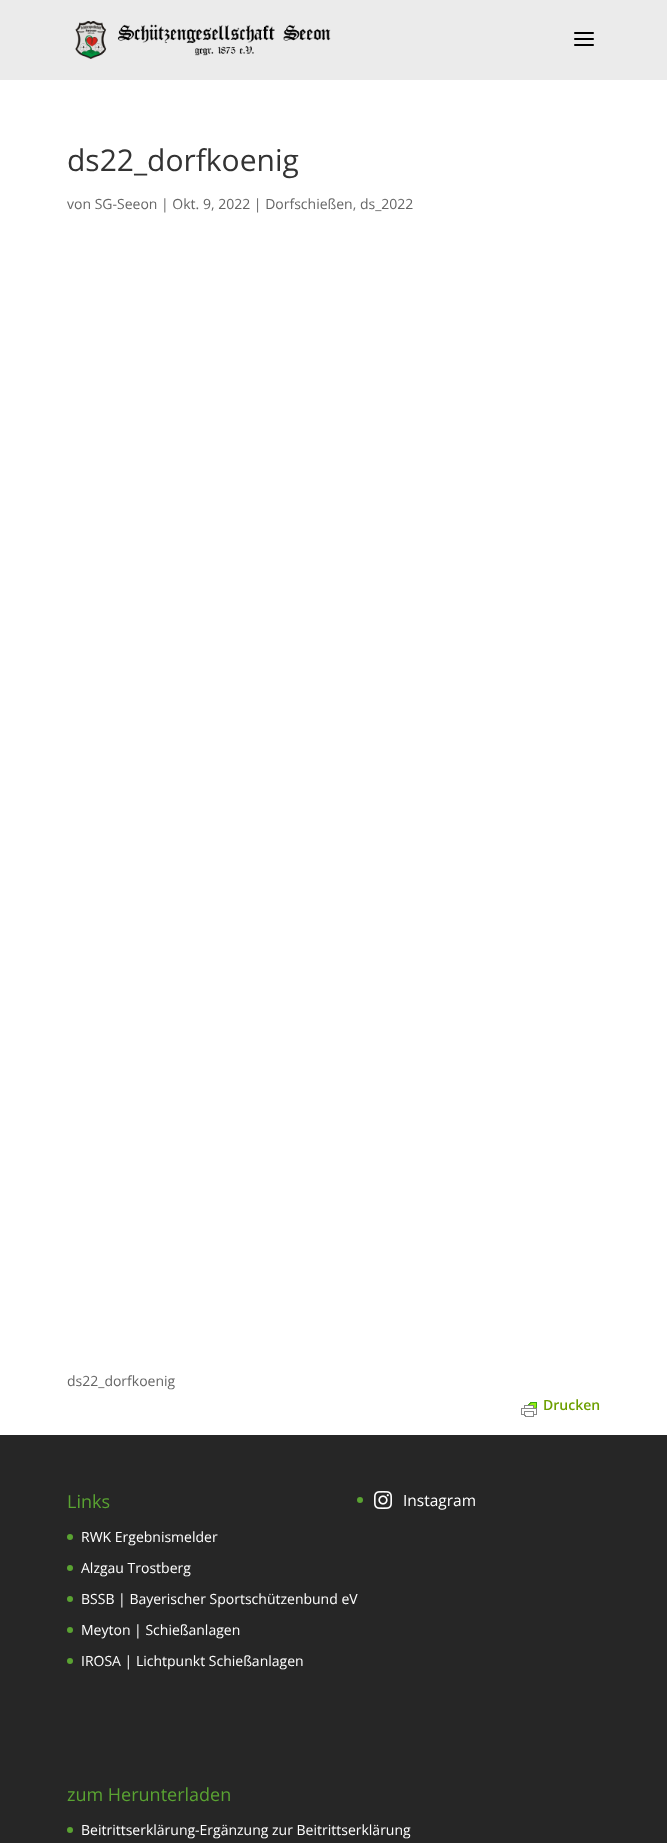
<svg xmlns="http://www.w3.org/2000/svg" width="667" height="1843">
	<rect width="100%" height="100%" fill="#FFFFFF" />
	<rect x="0" y="0" width="667" height="80" fill="#EBEBEB" />
	<image x="75" y="21" width="256" height="38" href="assets/img1.png" />
	<image x="574" y="32" width="20" height="14" href="assets/img2.png" />
	<text x="67" y="171" font-family="Open Sans" font-size="30" fill="#333333">ds22_dorfkoenig</text>
	<g font-family="Open Sans" font-size="14" fill="#666666">
		<text x="67" y="209">von SG-Seeon | Okt. 9, 2022 | Dorfschießen, ds_2022</text>
		<text x="67" y="1386">ds22_dorfkoenig</text>
	</g>
	<image x="521" y="1402" width="16" height="15" href="assets/img3.png" />
	<text x="543" y="1410" font-family="Open Sans" font-size="14" font-weight="600" fill="#6D9F00">Drucken</text>
	<rect x="0" y="1435" width="667" height="408" fill="#262626" />
	<text x="67" y="1508" font-family="Open Sans" font-size="18" fill="#5AA332">Links</text>
	<circle cx="70" cy="1537" r="3" fill="#5AA332" />
	<text x="81" y="1542" font-family="Open Sans" font-size="14" fill="#FFFFFF">RWK Ergebnismelder</text>
	<circle cx="70" cy="1568" r="3" fill="#5AA332" />
	<text x="81" y="1573" font-family="Open Sans" font-size="14" fill="#FFFFFF">Alzgau Trostberg</text>
	<circle cx="70" cy="1599" r="3" fill="#5AA332" />
	<text x="81" y="1604" font-family="Open Sans" font-size="14" fill="#FFFFFF">BSSB | Bayerischer Sportschützenbund eV</text>
	<circle cx="70" cy="1630" r="3" fill="#5AA332" />
	<text x="81" y="1635" font-family="Open Sans" font-size="14" fill="#FFFFFF">Meyton | Schießanlagen</text>
	<circle cx="70" cy="1661" r="3" fill="#5AA332" />
	<text x="81" y="1666" font-family="Open Sans" font-size="14" fill="#FFFFFF">IROSA | Lichtpunkt Schießanlagen</text>
	<circle cx="360" cy="1500" r="3" fill="#5AA332" />
	<image x="374" y="1491" width="18" height="18" href="assets/img4.png" />
	<text x="403" y="1506" font-family="Open Sans" font-size="15.5" fill="#FFFFFF">Instagram</text>
	<text x="67" y="1801" font-family="Open Sans" font-size="18" fill="#5AA332">zum Herunterladen</text>
	<circle cx="70" cy="1830" r="3" fill="#5AA332" />
	<text x="81" y="1835" font-family="Open Sans" font-size="14" fill="#FFFFFF">Beitrittserklärung-Ergänzung zur Beitrittserklärung</text>
</svg>
